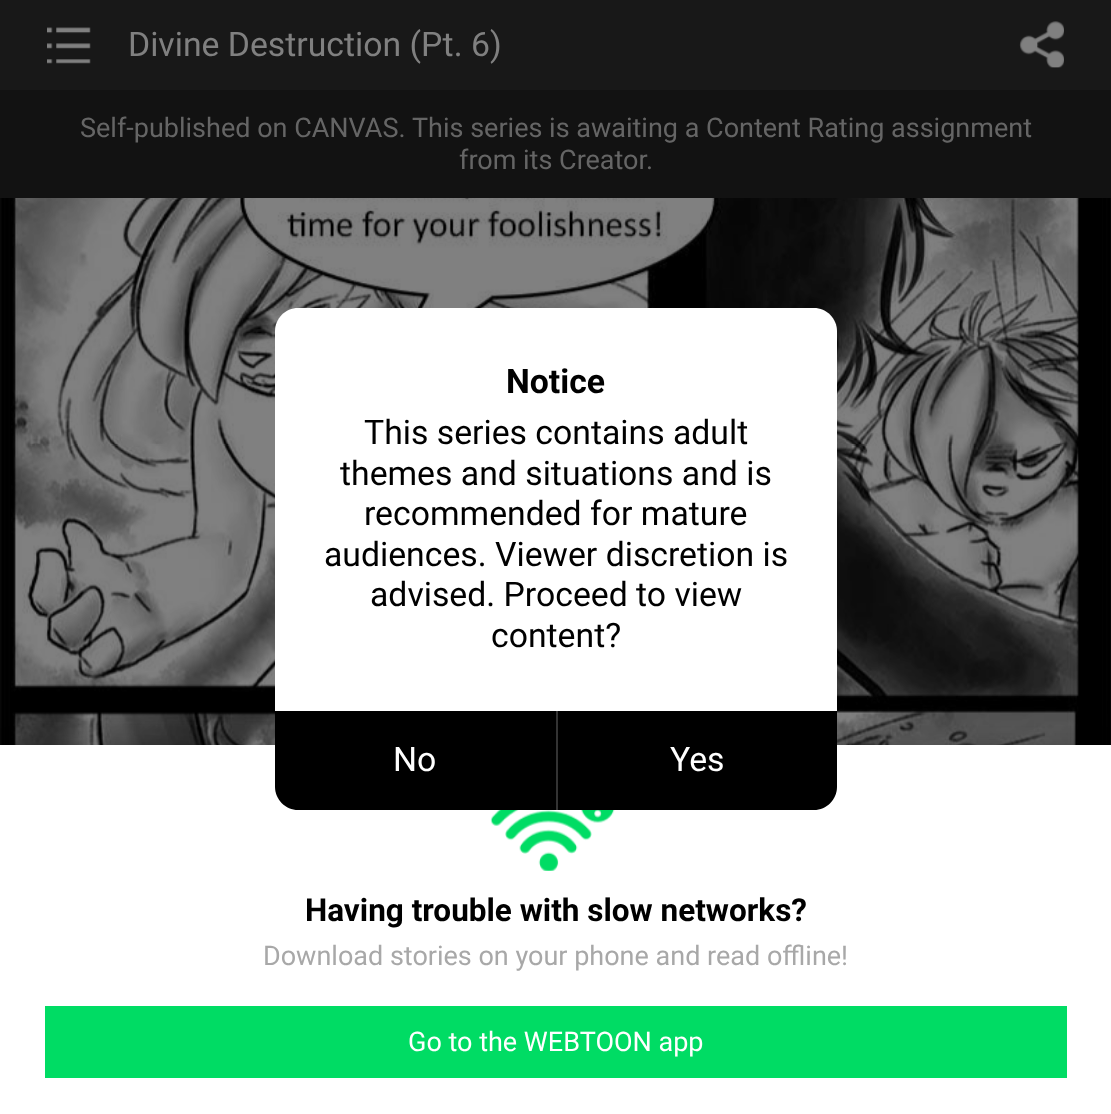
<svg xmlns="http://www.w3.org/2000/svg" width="1111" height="1114">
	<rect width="100%" height="100%" fill="#FFFFFF" />
	<rect x="0" y="0" width="1111" height="90" fill="#181818" />
	<image x="47" y="27" width="44" height="37" href="assets/img1.png" />
	<text x="128" y="56" font-family="Roboto" font-size="33.75" fill="#808080">Divine Destruction (Pt. 6)</text>
	<image x="1019" y="21" width="45" height="47" href="assets/img2.png" />
	<rect x="0" y="90" width="1111" height="108" fill="#121212" />
	<g font-family="Roboto" font-size="27" fill="#656565">
		<text x="80" y="137">Self-published on CANVAS.</text>
		<text x="412" y="137">This series is awaiting a Content Rating assignment</text>
		<text x="459" y="169">from its Creator.</text>
	</g>
	<image x="0" y="198" width="1111" height="547" href="assets/img3.png" />
	<path d="M298 308H814C826.5 308 837 318.5 837 331V711H275V331C275 318.5 285.5 308 298 308Z" fill="#FFFFFF" />
	<text x="506" y="393" font-family="Roboto" font-size="33.75" font-weight="700" fill="#000000">Notice</text>
	<g font-family="Roboto" font-size="33.75" fill="#000000">
		<text x="364" y="444">This series contains adult</text>
		<text x="340" y="485">themes and situations and is</text>
		<text x="364" y="525">recommended for mature</text>
		<text x="324" y="566">audiences. Viewer discretion is</text>
		<text x="370" y="606">advised. Proceed to view</text>
		<text x="491" y="647">content?</text>
	</g>
	<rect x="0" y="749" width="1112" height="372" fill="#000000" fill-opacity="0.2" filter="blur(11px)" />
	<rect x="0" y="745" width="1111" height="369" fill="#FFFFFF" />
	<path d="M275 711H837V787C837 799.5 826.5 810 814 810H298C285.5 810 275 799.5 275 787Z" fill="#000000" />
	<text x="393" y="771" font-family="Roboto" font-size="33.75" fill="#FFFFFF">No</text>
	<rect x="556" y="711" width="2" height="99" fill="#333333" />
	<text x="670" y="771" font-family="Roboto" font-size="33.75" fill="#FFFFFF">Yes</text>
	<image x="490" y="810" width="125" height="61" href="assets/img4.png" />
	<text x="305" y="921" font-family="Roboto" font-size="31.5" font-weight="700" fill="#000000">Having trouble with slow networks?</text>
	<text x="263" y="965" font-family="Roboto" font-size="27" fill="#A8A8A8">Download stories on your phone and read offline!</text>
	<rect x="45" y="1006" width="1022" height="72" fill="#00DC64" />
	<text x="408" y="1051" font-family="Roboto" font-size="27" fill="#FFFFFF">Go to the WEBTOON app</text>
</svg>
